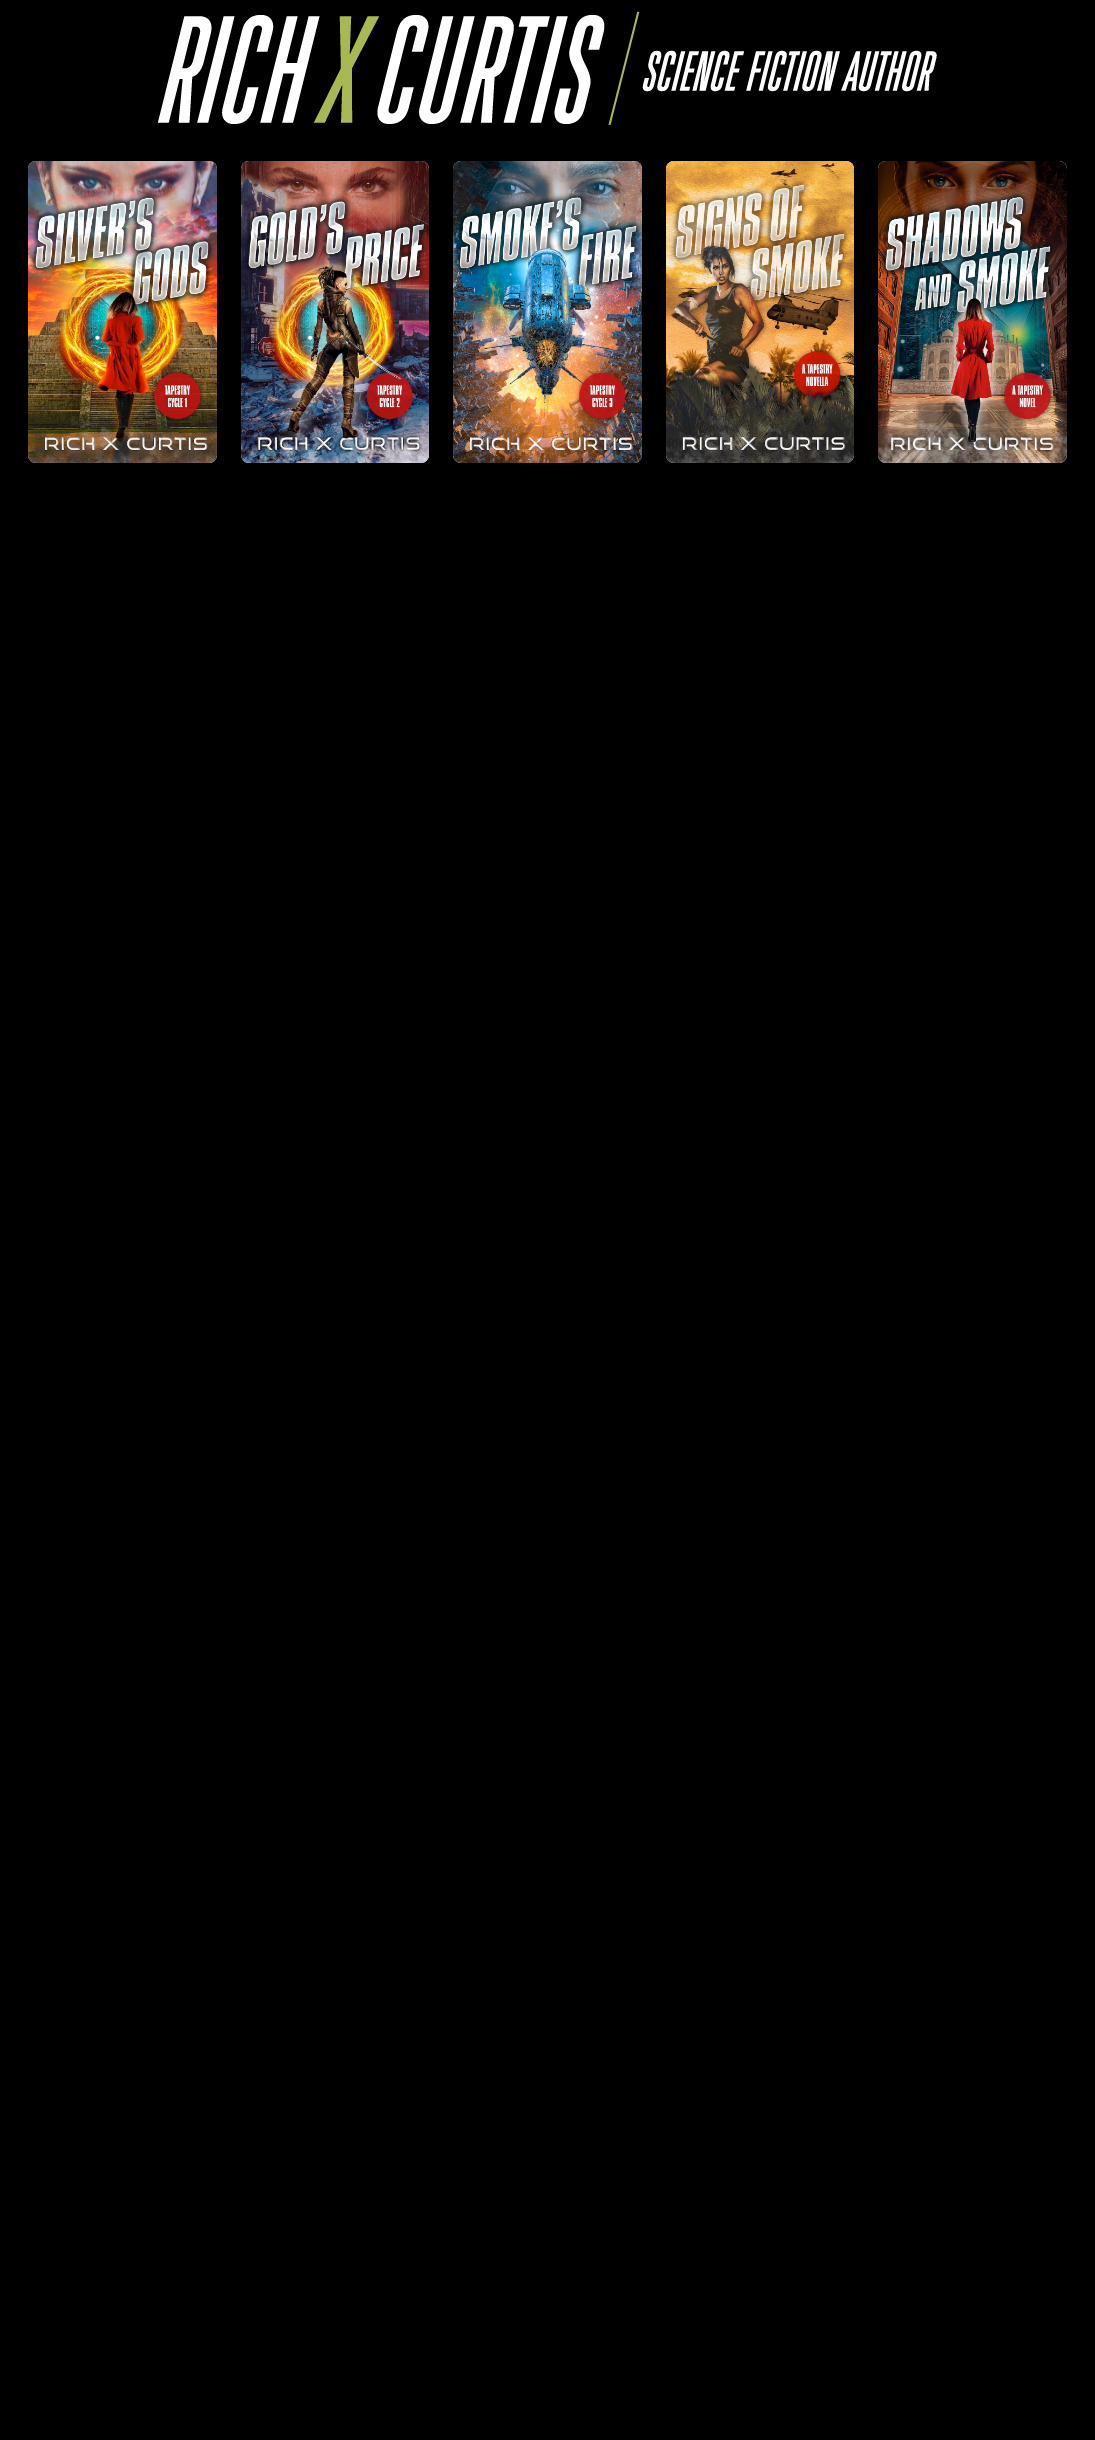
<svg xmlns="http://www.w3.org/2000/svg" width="1095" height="2440">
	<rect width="100%" height="100%" fill="#000000" />
	<image x="158" y="11" width="779" height="114" href="assets/img1.png" />
	<rect x="28" y="161" width="189" height="302" rx="8" fill="#F3F4F6" />
	<image x="28" y="161" width="189" height="302" href="assets/img2.png" />
	<rect x="241" y="161" width="188" height="302" rx="8" fill="#F3F4F6" />
	<image x="241" y="161" width="188" height="302" href="assets/img3.png" />
	<rect x="453" y="161" width="189" height="302" rx="8" fill="#F3F4F6" />
	<image x="453" y="161" width="189" height="302" href="assets/img4.png" />
	<rect x="666" y="161" width="188" height="302" rx="8" fill="#F3F4F6" />
	<image x="666" y="161" width="188" height="302" href="assets/img5.png" />
	<rect x="878" y="161" width="189" height="302" rx="8" fill="#F3F4F6" />
	<image x="878" y="161" width="189" height="302" href="assets/img6.png" />
</svg>
